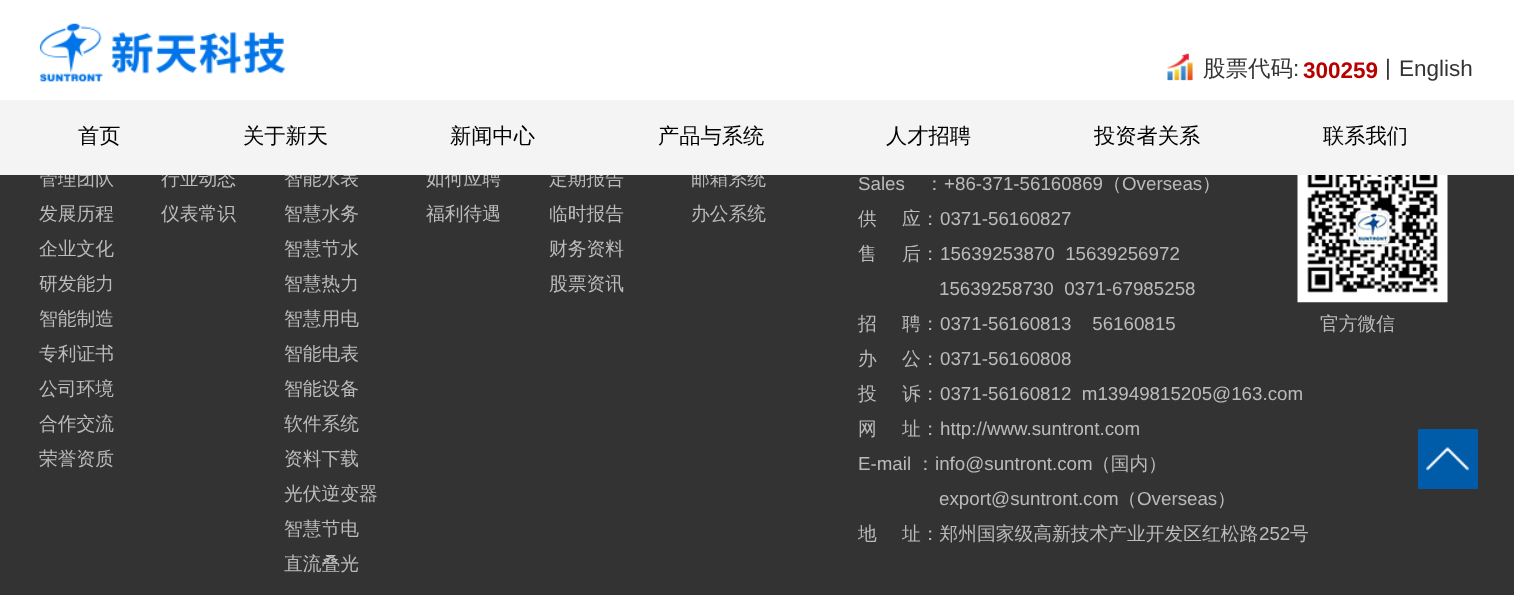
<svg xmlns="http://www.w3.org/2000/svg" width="1514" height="595">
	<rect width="100%" height="100%" fill="#333333" />
	<rect x="0" y="0" width="1514" height="100" fill="#FFFFFF" />
	<image x="39" y="23" width="247" height="59" href="assets/img1.png" />
	<image x="1167" y="53" width="26" height="28" href="assets/img2.png" />
	<text x="1203" y="76" font-family="WenQuanYi Zen Hei" font-size="22.5" font-weight="500" fill="#333333">股票代码</text>
	<text x="1293" y="76" font-family="Liberation Sans" font-size="22.5" fill="#333333">:</text>
	<text x="1303" y="78" font-family="Liberation Sans" font-size="22.5" font-weight="700" fill="#B70101">300259</text>
	<g font-family="Liberation Sans" font-size="22.5" fill="#333333">
		<text x="1385" y="75">|</text>
		<text x="1399" y="76">English</text>
	</g>
	<g font-family="WenQuanYi Zen Hei" font-size="18.75" font-weight="500" fill="#BDBABA">
		<text x="39" y="185">管理团队</text>
		<text x="161" y="185">行业动态</text>
		<text x="284" y="185">智能水表</text>
		<text x="426" y="185">如何应聘</text>
		<text x="549" y="185">定期报告</text>
		<text x="691" y="185">邮箱系统</text>
	</g>
	<rect x="0" y="100" width="1514" height="75" fill="#F4F4F4" />
	<g font-family="WenQuanYi Zen Hei" font-size="21.25" font-weight="500" fill="#000000">
		<text x="78" y="143">首页</text>
		<text x="243" y="143">关于新天</text>
		<text x="450" y="143">新闻中心</text>
		<text x="658" y="143">产品与系统</text>
		<text x="886" y="143">人才招聘</text>
		<text x="1094" y="143">投资者关系</text>
		<text x="1323" y="143">联系我们</text>
	</g>
	<g font-family="WenQuanYi Zen Hei" font-size="18.75" font-weight="500" fill="#BDBABA">
		<text x="39" y="220">发展历程</text>
		<text x="39" y="255">企业文化</text>
		<text x="39" y="290">研发能力</text>
		<text x="39" y="325">智能制造</text>
		<text x="39" y="360">专利证书</text>
		<text x="39" y="395">公司环境</text>
		<text x="39" y="430">合作交流</text>
		<text x="39" y="465">荣誉资质</text>
		<text x="161" y="220">仪表常识</text>
		<text x="284" y="220">智慧水务</text>
		<text x="284" y="255">智慧节水</text>
		<text x="284" y="290">智慧热力</text>
		<text x="284" y="325">智慧用电</text>
		<text x="284" y="360">智能电表</text>
		<text x="284" y="395">智能设备</text>
		<text x="284" y="430">软件系统</text>
		<text x="284" y="465">资料下载</text>
		<text x="284" y="500">光伏逆变器</text>
		<text x="284" y="535">智慧节电</text>
		<text x="284" y="570">直流叠光</text>
		<text x="426" y="220">福利待遇</text>
		<text x="549" y="220">临时报告</text>
		<text x="549" y="255">财务资料</text>
		<text x="549" y="290">股票资讯</text>
		<text x="691" y="220">办公系统</text>
	</g>
	<text x="858" y="190" font-family="Liberation Sans" font-size="18.75" fill="#BDBABA">Sales</text>
	<text x="925" y="190" font-family="WenQuanYi Zen Hei" font-size="18.75" font-weight="500" fill="#BDBABA">：</text>
	<text x="944" y="190" font-family="Liberation Sans" font-size="18.75" fill="#BDBABA">+86-371-56160869</text>
	<text x="1103" y="190" font-family="WenQuanYi Zen Hei" font-size="18.75" font-weight="500" fill="#BDBABA">（</text>
	<text x="1122" y="190" font-family="Liberation Sans" font-size="18.75" fill="#BDBABA">Overseas</text>
	<g font-family="WenQuanYi Zen Hei" font-size="18.75" font-weight="500" fill="#BDBABA">
		<text x="1202" y="190">）</text>
		<text x="858" y="225">供</text>
		<text x="902" y="225">应：</text>
	</g>
	<text x="940" y="225" font-family="Liberation Sans" font-size="18.75" fill="#BDBABA">0371-56160827</text>
	<g font-family="WenQuanYi Zen Hei" font-size="18.75" font-weight="500" fill="#BDBABA">
		<text x="858" y="260">售</text>
		<text x="902" y="260">后：</text>
	</g>
	<g font-family="Liberation Sans" font-size="18.75" fill="#BDBABA">
		<text x="940" y="260" xml:space="preserve">15639253870  15639256972</text>
		<text x="939" y="295" xml:space="preserve">15639258730  0371-67985258</text>
	</g>
	<g font-family="WenQuanYi Zen Hei" font-size="18.75" font-weight="500" fill="#BDBABA">
		<text x="858" y="330">招</text>
		<text x="902" y="330">聘：</text>
	</g>
	<text x="940" y="330" font-family="Liberation Sans" font-size="18.75" fill="#BDBABA" xml:space="preserve">0371-56160813    56160815</text>
	<g font-family="WenQuanYi Zen Hei" font-size="18.75" font-weight="500" fill="#BDBABA">
		<text x="858" y="365">办</text>
		<text x="902" y="365">公：</text>
	</g>
	<text x="940" y="365" font-family="Liberation Sans" font-size="18.75" fill="#BDBABA">0371-56160808</text>
	<g font-family="WenQuanYi Zen Hei" font-size="18.75" font-weight="500" fill="#BDBABA">
		<text x="858" y="400">投</text>
		<text x="902" y="400">诉：</text>
	</g>
	<text x="940" y="400" font-family="Liberation Sans" font-size="18.75" fill="#BDBABA" xml:space="preserve">0371-56160812  m13949815205@163.com</text>
	<g font-family="WenQuanYi Zen Hei" font-size="18.75" font-weight="500" fill="#BDBABA">
		<text x="858" y="435">网</text>
		<text x="902" y="435">址：</text>
	</g>
	<g font-family="Liberation Sans" font-size="18.75" fill="#BDBABA">
		<text x="940" y="435">http://www.suntront.com</text>
		<text x="858" y="470">E-mail</text>
	</g>
	<text x="916" y="470" font-family="WenQuanYi Zen Hei" font-size="18.75" font-weight="500" fill="#BDBABA">：</text>
	<text x="935" y="470" font-family="Liberation Sans" font-size="18.75" fill="#BDBABA">info@suntront.com</text>
	<text x="1092" y="470" font-family="WenQuanYi Zen Hei" font-size="18.75" font-weight="500" fill="#BDBABA">（国内）</text>
	<text x="939" y="505" font-family="Liberation Sans" font-size="18.75" fill="#BDBABA">export@suntront.com</text>
	<text x="1118" y="505" font-family="WenQuanYi Zen Hei" font-size="18.75" font-weight="500" fill="#BDBABA">（</text>
	<text x="1137" y="505" font-family="Liberation Sans" font-size="18.75" fill="#BDBABA">Overseas</text>
	<g font-family="WenQuanYi Zen Hei" font-size="18.75" font-weight="500" fill="#BDBABA">
		<text x="1217" y="505">）</text>
		<text x="858" y="540">地</text>
		<text x="902" y="540">址：郑州国家级高新技术产业开发区红松路</text>
	</g>
	<text x="1259" y="540" font-family="Liberation Sans" font-size="18.75" fill="#BDBABA">252</text>
	<text x="1290" y="540" font-family="WenQuanYi Zen Hei" font-size="18.75" font-weight="500" fill="#BDBABA">号</text>
	<image x="1297" y="175" width="151" height="128" href="assets/img3.png" />
	<text x="1320" y="330" font-family="WenQuanYi Zen Hei" font-size="18.75" font-weight="500" fill="#BDBABA">官方微信</text>
	<rect x="1418" y="429" width="60" height="60" fill="#005BA8" />
	<image x="1426" y="447" width="43" height="24" href="assets/img4.png" />
</svg>
